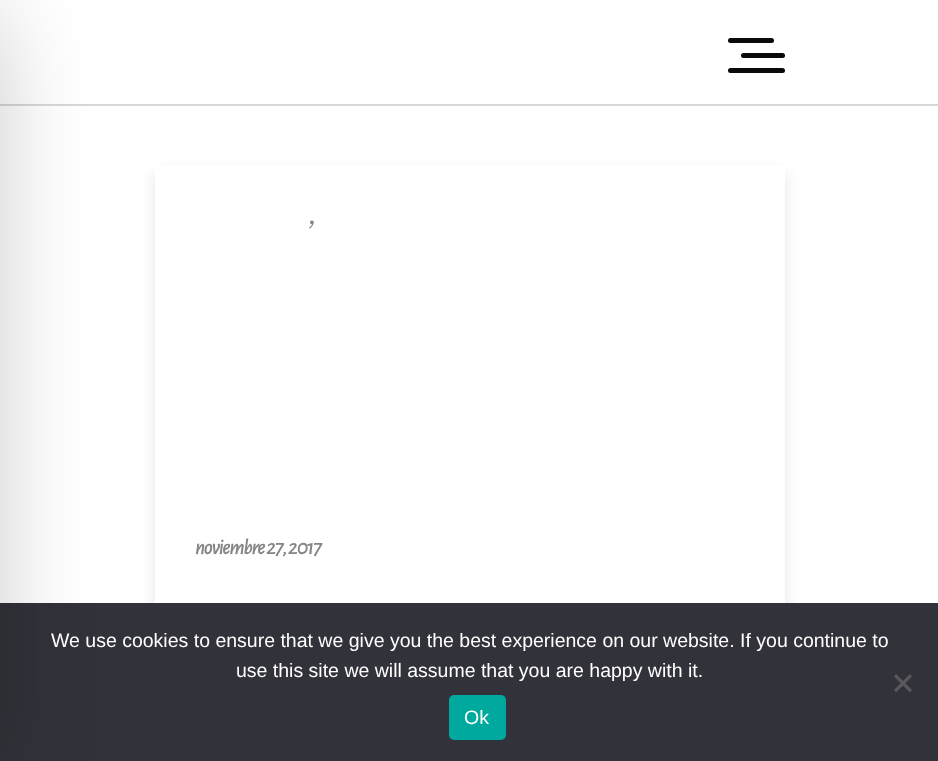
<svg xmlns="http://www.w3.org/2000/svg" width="938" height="761">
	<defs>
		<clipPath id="clip1"><path d="M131 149H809V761H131ZM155 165H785V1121H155Z" clip-rule="evenodd" /></clipPath>
	</defs>
	<rect width="100%" height="100%" fill="#FFFFFF" />
	<rect x="0" y="104" width="938" height="2" fill="#D8D8D8" />
	<rect x="728" y="38" width="46" height="5" rx="2.5" fill="#0A0A0A" />
	<rect x="741" y="53" width="44" height="5" rx="2.5" fill="#0A0A0A" />
	<rect x="728" y="68" width="57" height="5" rx="2.5" fill="#0A0A0A" />
	<g clip-path="url(#clip1)">
		<rect x="155" y="173" width="630" height="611" fill="#000000" fill-opacity="0.1" filter="blur(7.5px)" />
	</g>
	<text x="310" y="224" font-family="Libre Baskerville" font-size="27" font-style="italic" fill="#868686">,</text>
	<text x="195" y="554" font-family="Alegreya Sans" font-size="21" font-weight="700" font-style="italic" letter-spacing="-1" fill="#868686">noviembre 27, 2017</text>
	<rect x="0" y="603" width="938" height="158" fill="#32323A" />
	<rect x="-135" y="15" width="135" height="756" fill="#000000" fill-opacity="0.2" filter="blur(45px)" />
	<g font-family="Liberation Sans" font-size="19.5" fill="#FFFFFF">
		<text x="51" y="647">We use cookies to ensure that we give you the best experience on our website. If you continue to</text>
		<text x="236" y="677">use this site we will assume that you are happy with it.</text>
	</g>
	<path d="M910 674L912 676.5L896 692.5L894 690Z" fill="#59595D" />
	<path d="M894 676.5L896 674L912 690L910 692.5Z" fill="#59595D" />
	<rect x="449" y="695" width="57" height="45" rx="5" fill="#00A99D" />
	<text x="464" y="724" font-family="Liberation Sans" font-size="19.5" fill="#FFFFFF">Ok</text>
</svg>
